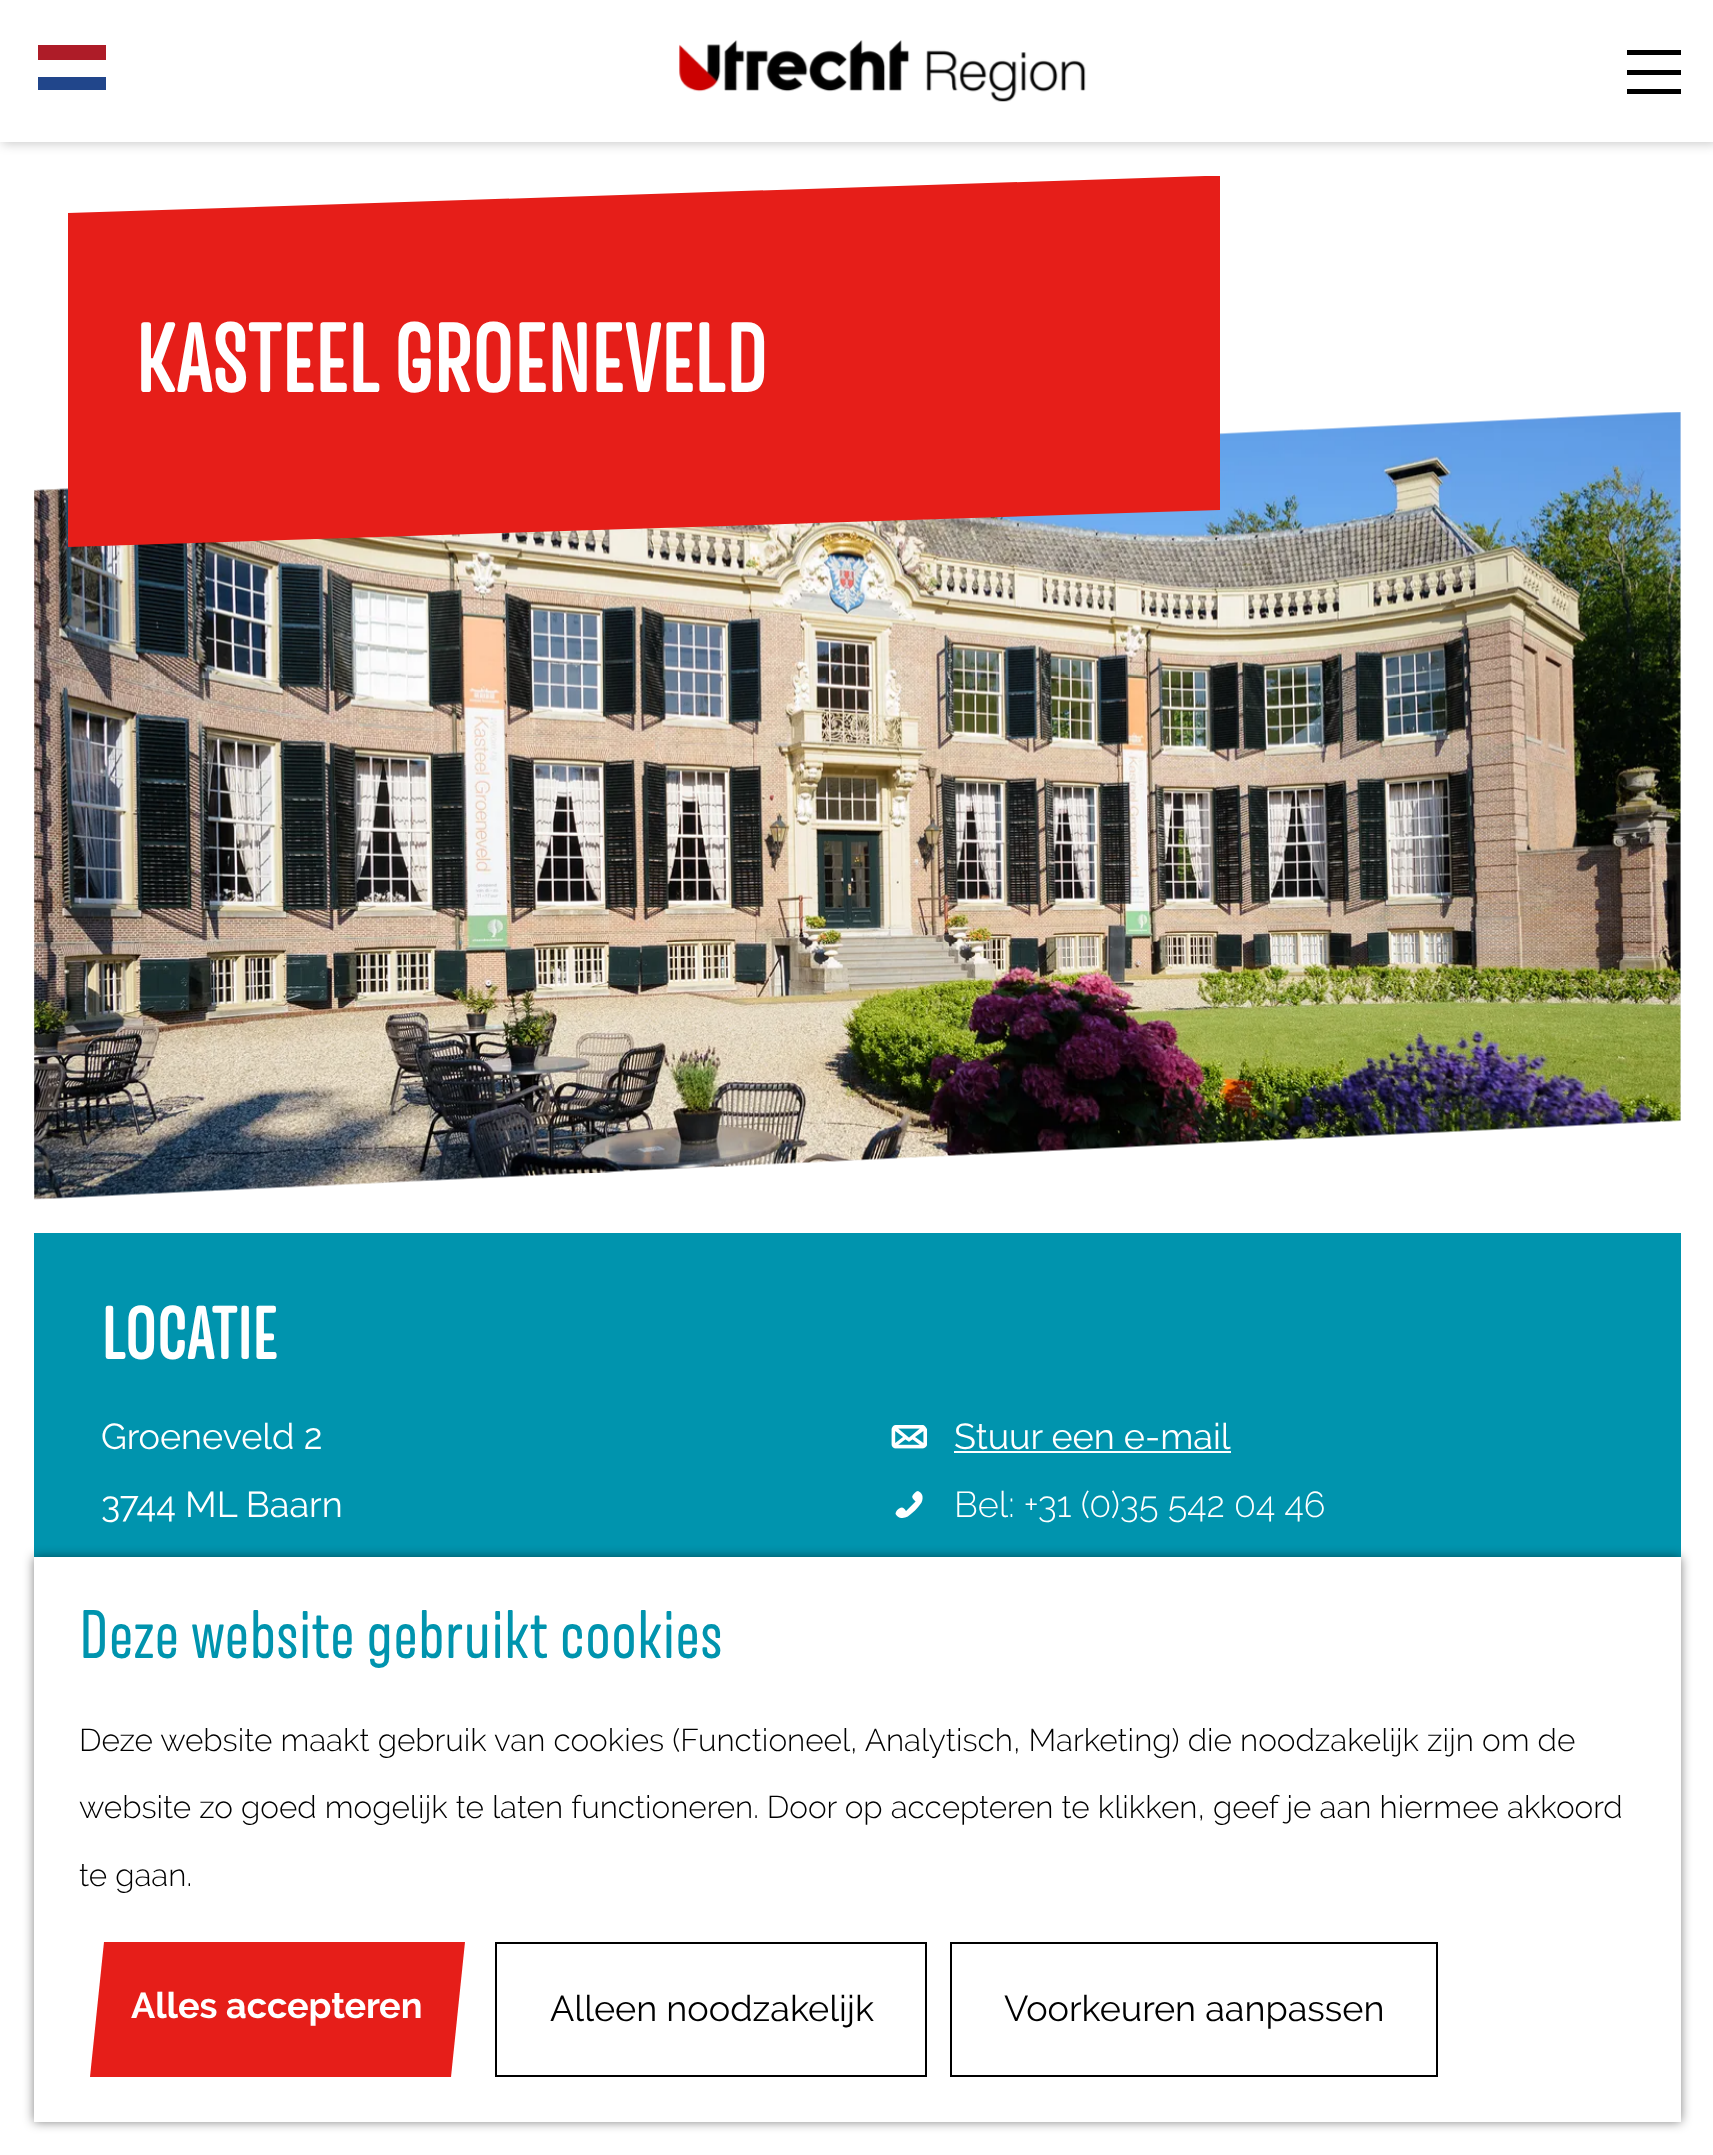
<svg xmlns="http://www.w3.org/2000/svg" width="1713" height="2155">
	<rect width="100%" height="100%" fill="#FFFFFF" />
	<rect x="2" y="2" width="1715" height="142" fill="#000000" fill-opacity="0.2" filter="blur(5.5px)" />
	<rect x="0" y="0" width="1713" height="142" fill="#FFFFFF" />
	<rect x="38" y="77" width="68" height="13" fill="#21468B" />
	<rect x="38" y="45" width="68" height="15" fill="#AE1C28" />
	<image x="679" y="40" width="407" height="62" href="assets/img1.png" />
	<path d="M1627 50H1681V55H1627ZM1627 70H1681V75H1627ZM1627 89H1681V94H1627Z" fill="#000000" />
	<path d="M1681 412V1120L34 1199V490Z" fill="#EEEEEE" />
	<image x="34" y="412" width="1647" height="788" href="assets/img2.png" />
	<path d="M1220 510L68 547V213L1205 176H1220Z" fill="#E61E19" />
	<text x="135" y="392" font-family="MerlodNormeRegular" font-size="94.5" font-weight="700" fill="#FFFFFF">KASTEEL GROENEVELD</text>
	<rect x="34" y="1233" width="1647" height="324" fill="#0094AE" />
	<text x="101" y="1359" font-family="MerlodNormeRegular" font-size="72" font-weight="700" fill="#FFFFFF">LOCATIE</text>
	<g font-family="Raleway" font-size="36" fill="#FFFFFF">
		<text x="101" y="1449">Groeneveld 2</text>
		<text x="101" y="1517">3744 ML Baarn</text>
	</g>
	<image x="891" y="1425" width="36" height="24" href="assets/img3.png" />
	<text x="954" y="1449" font-family="Raleway" font-size="36" fill="#FFFFFF">Stuur een e-mail</text>
	<rect x="954" y="1451" width="277" height="2" fill="#FFFFFF" />
	<image x="895" y="1491" width="28" height="27" href="assets/img4.png" />
	<text x="954" y="1517" font-family="Raleway" font-size="36" font-weight="300" fill="#FFFFFF">Bel: +31 (0)35 542 04 46</text>
	<rect x="34" y="1557" width="1647" height="565" fill="#000000" fill-opacity="0.5" filter="blur(5.5px)" />
	<rect x="34" y="1557" width="1647" height="565" fill="#FFFFFF" />
	<text x="79" y="1658" font-family="MerlodNormeRegular" font-size="67.5" fill="#0094AE">Deze website gebruikt cookies</text>
	<g font-family="Raleway" font-size="31.5" font-weight="300" fill="#000000">
		<text x="79" y="1751">Deze website maakt gebruik van cookies (Functioneel, Analytisch, Marketing) die noodzakelijk zijn om de</text>
		<text x="79" y="1818">website zo goed mogelijk te laten functioneren. Door op accepteren te klikken, geef je aan hiermee akkoord</text>
		<text x="79" y="1886">te gaan.</text>
	</g>
	<path d="M104 1942H465L451 2077H90Z" fill="#E61E19" />
	<text x="131" y="2018" font-family="Raleway" font-size="36" font-weight="700" fill="#FFFFFF">Alles accepteren</text>
	<rect x="496" y="1943" width="430" height="133" fill="none" stroke="#000000" stroke-width="2" />
	<text x="550" y="2021" font-family="Raleway" font-size="36" fill="#000000">Alleen noodzakelijk</text>
	<rect x="951" y="1943" width="486" height="133" fill="none" stroke="#000000" stroke-width="2" />
	<text x="1004" y="2021" font-family="Raleway" font-size="36" fill="#000000">Voorkeuren aanpassen</text>
</svg>
